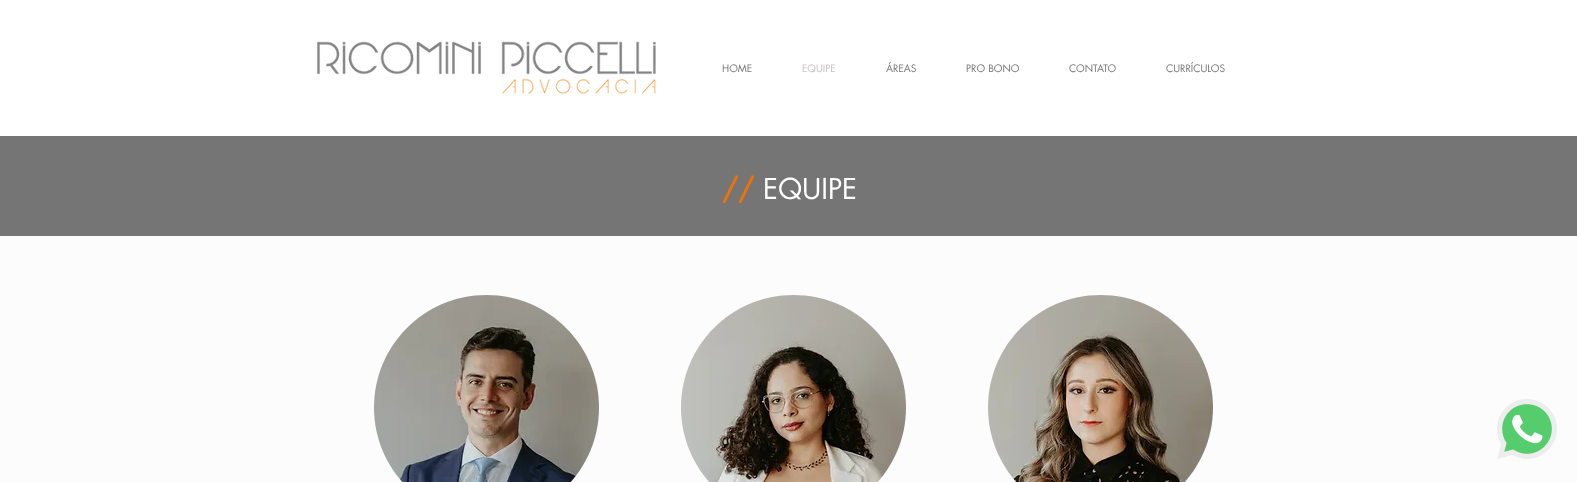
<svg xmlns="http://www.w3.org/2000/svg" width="1577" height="482">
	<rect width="100%" height="100%" fill="#FCFCFC" />
	<rect x="0" y="0" width="1577" height="136" fill="#FFFFFF" />
	<image x="317" y="41" width="339" height="53" href="assets/img1.png" />
	<text x="722" y="72" font-family="futura" font-size="10" fill="#757575">HOME</text>
	<text x="802" y="72" font-family="futura" font-size="10" fill="#C7C3C3">EQUIPE</text>
	<g font-family="futura" font-size="10" fill="#757575">
		<text x="886" y="72">ÁREAS</text>
		<text x="966" y="72">PRO BONO</text>
		<text x="1069" y="72">CONTATO</text>
		<text x="1166" y="72">CURRÍCULOS</text>
	</g>
	<rect x="0" y="136" width="1577" height="100" fill="#757575" />
	<text x="722" y="199" font-family="futura" font-size="28" font-weight="700" fill="#ED7309">//</text>
	<text x="763" y="199" font-family="futura" font-size="28" fill="#FFFFFF">EQUIPE</text>
	<image x="374" y="295" width="225" height="187" href="assets/img2.png" />
	<image x="681" y="295" width="225" height="187" href="assets/img3.png" />
	<image x="988" y="295" width="225" height="187" href="assets/img4.png" />
	<image x="1497" y="399" width="60" height="60" href="assets/img5.png" />
</svg>
